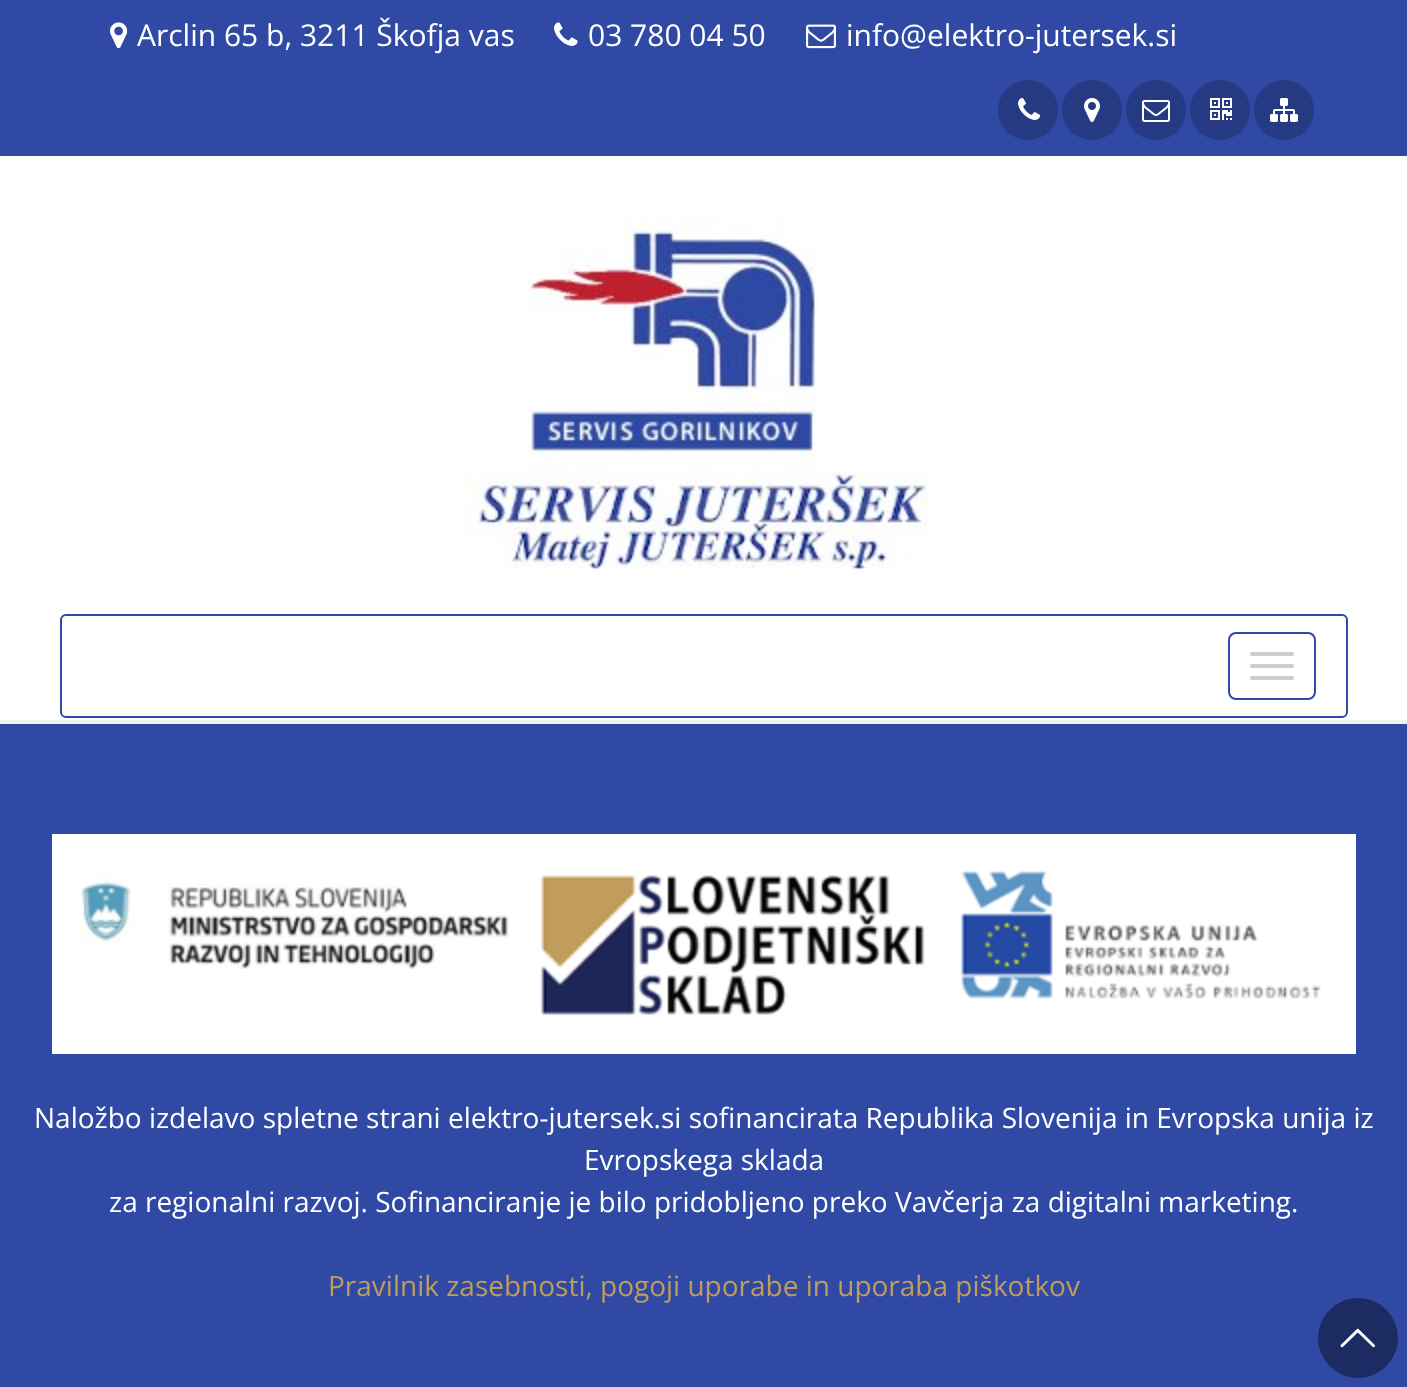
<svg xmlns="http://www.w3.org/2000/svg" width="1407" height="1387">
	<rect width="100%" height="100%" fill="#2F49A4" />
	<image x="110" y="22" width="18" height="27" href="assets/img1.png" />
	<text x="137" y="46" font-family="Open Sans" font-size="30" fill="#FFFFFF">Arclin 65 b, 3211 Škofja vas</text>
	<image x="554" y="22" width="24" height="24" href="assets/img2.png" />
	<text x="588" y="46" font-family="Open Sans" font-size="30" fill="#FFFFFF">03 780 04 50</text>
	<image x="806" y="24" width="30" height="25" href="assets/img3.png" />
	<text x="846" y="46" font-family="Open Sans" font-size="30" fill="#FFFFFF">info@elektro-jutersek.si</text>
	<circle cx="1028" cy="110" r="30" fill="#263A83" />
	<image x="1018" y="98" width="22" height="22" href="assets/img4.png" />
	<circle cx="1092" cy="110" r="30" fill="#263A83" />
	<image x="1084" y="98" width="16" height="24" href="assets/img5.png" />
	<circle cx="1156" cy="110" r="30" fill="#263A83" />
	<image x="1142" y="100" width="28" height="22" href="assets/img6.png" />
	<circle cx="1220" cy="110" r="30" fill="#263A83" />
	<image x="1210" y="98" width="22" height="22" href="assets/img7.png" />
	<circle cx="1284" cy="110" r="30" fill="#263A83" />
	<image x="1270" y="98" width="28" height="24" href="assets/img8.png" />
	<rect x="0" y="156" width="1407" height="564" fill="#FFFFFF" />
	<rect x="0" y="720" width="1407" height="4" fill="#F1F1F1" />
	<image x="464" y="216" width="467" height="355" href="assets/img9.png" />
	<rect x="61" y="615" width="1286" height="102" rx="5" fill="none" stroke="#2F49A4" stroke-width="2" />
	<rect x="1229" y="633" width="86" height="66" rx="7" fill="none" stroke="#2F49A4" stroke-width="2" />
	<rect x="1250" y="652" width="44" height="4" rx="2" fill="#CCCCCC" />
	<rect x="1250" y="664" width="44" height="4" rx="2" fill="#CCCCCC" />
	<rect x="1250" y="676" width="44" height="4" rx="2" fill="#CCCCCC" />
	<image x="52" y="834" width="1304" height="220" href="assets/img10.png" />
	<g font-family="Open Sans" font-size="28" fill="#FFFFFF">
		<text x="34" y="1128">Naložbo izdelavo spletne strani elektro-jutersek.si sofinancirata Republika Slovenija in Evropska unija iz</text>
		<text x="584" y="1170">Evropskega sklada</text>
		<text x="109" y="1212">za regionalni razvoj. Sofinanciranje je bilo pridobljeno preko Vavčerja za digitalni marketing.</text>
	</g>
	<text x="328" y="1296" font-family="Open Sans" font-size="28" fill="#C09D5A">Pravilnik zasebnosti, pogoji uporabe in uporaba piškotkov</text>
	<circle cx="1358" cy="1338" r="40" fill="#1C2C62" />
	<image x="1340" y="1328" width="35" height="20" href="assets/img11.png" />
</svg>
